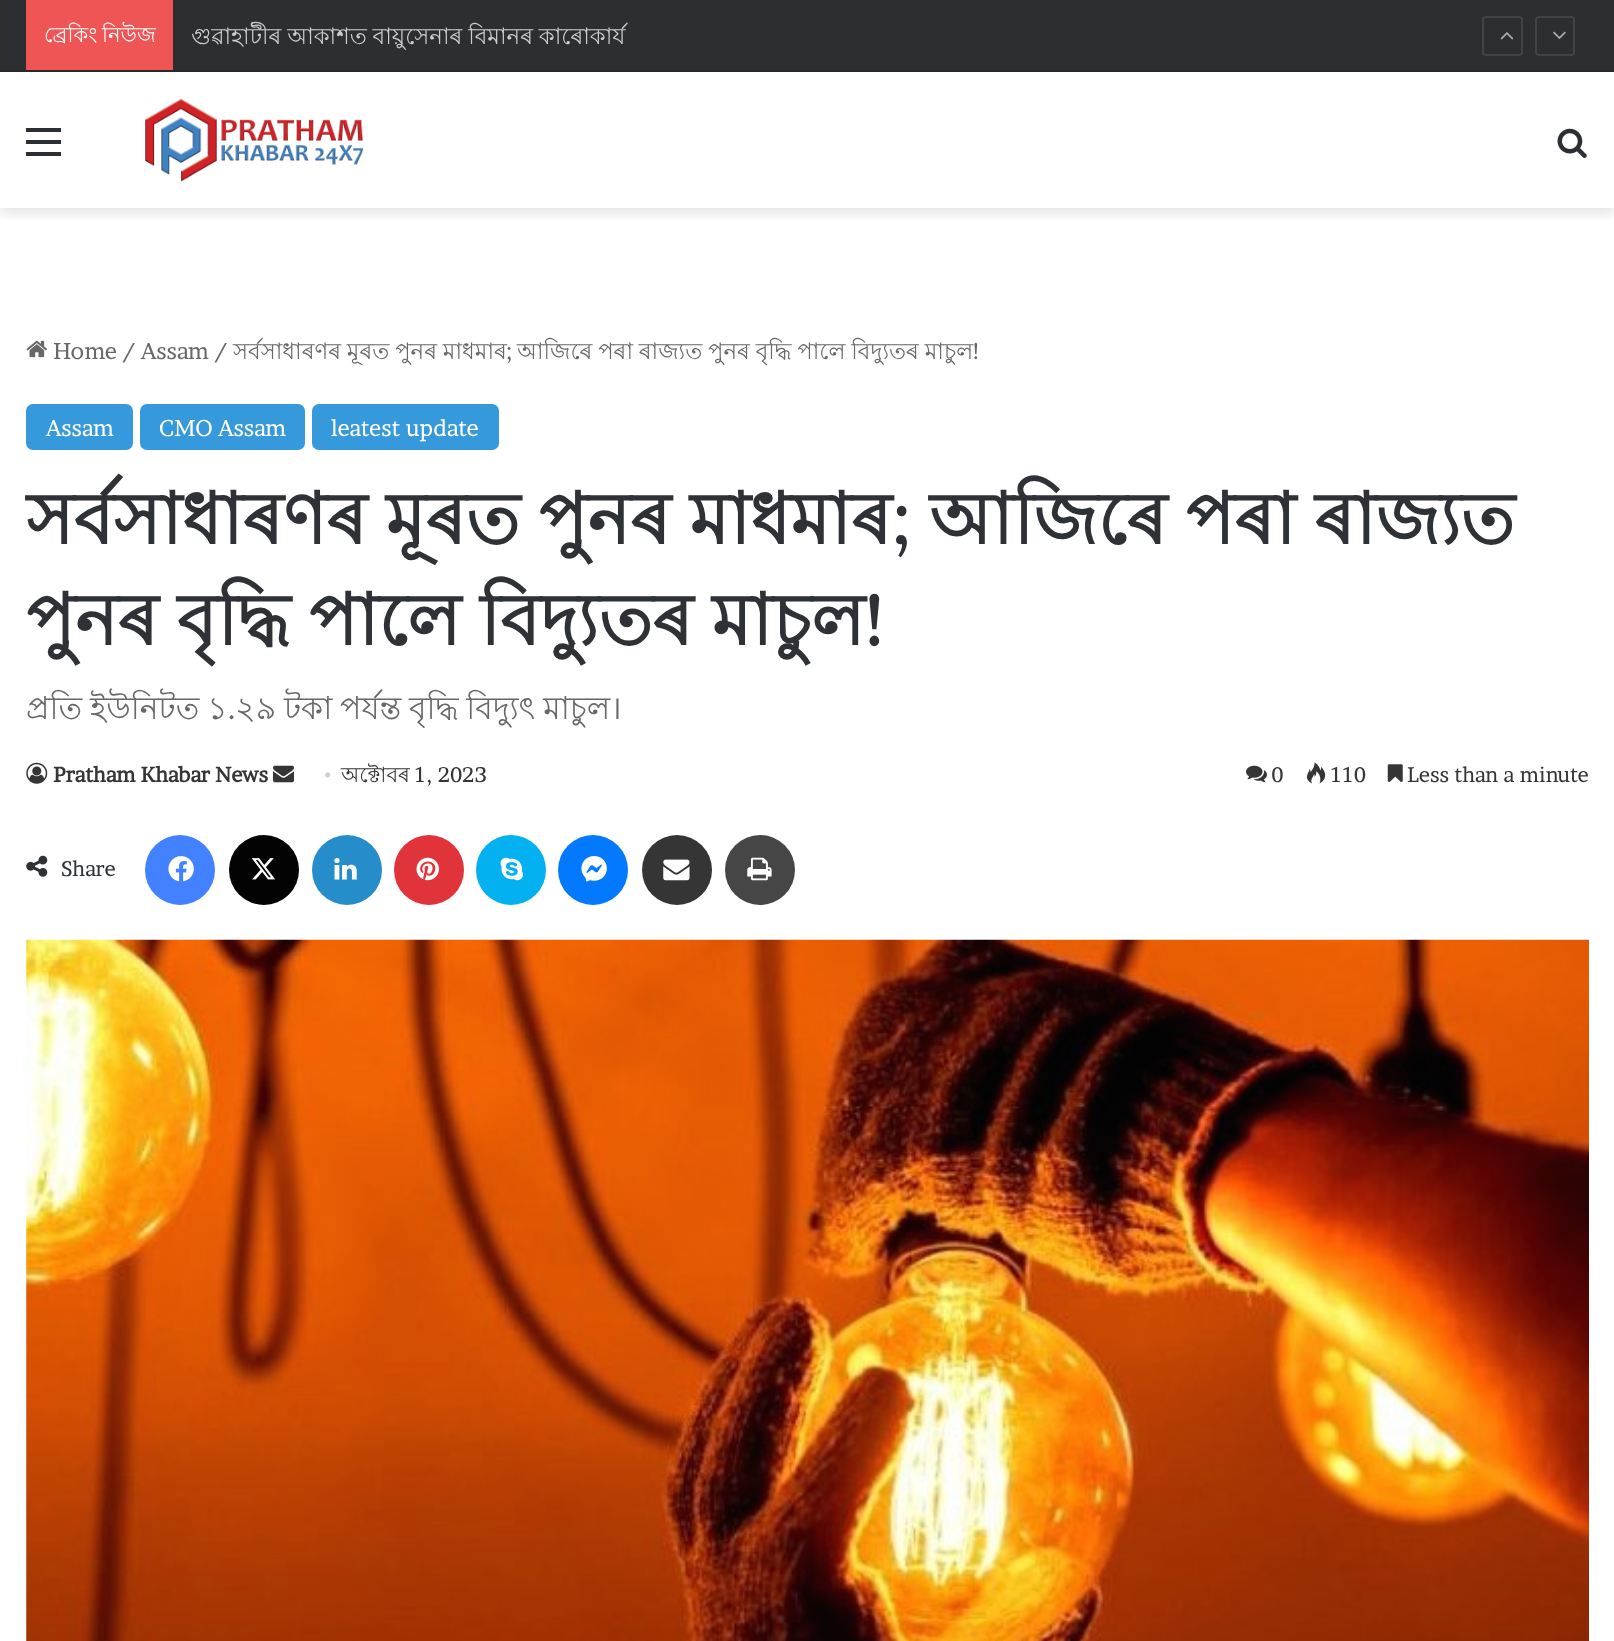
<svg xmlns="http://www.w3.org/2000/svg" width="1614" height="1641">
	<defs>
		<clipPath id="clip1"><rect x="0" y="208" width="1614" height="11" /></clipPath>
	</defs>
	<rect width="100%" height="100%" fill="#FFFFFF" />
	<g clip-path="url(#clip1)">
		<rect x="0" y="77" width="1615" height="137" fill="#000000" fill-opacity="0.1" filter="blur(6px)" />
	</g>
	<rect x="0" y="0" width="1614" height="70" fill="#2C2E32" />
	<rect x="0" y="70" width="1614" height="2" fill="#28292D" />
	<rect x="26" y="0" width="147" height="70" fill="#F05555" />
	<text x="44" y="42" word-spacing="-1" font-family="Lohit Bengali" font-size="21" fill="#FFFFFF">ব্ৰেকিং নিউজ</text>
	<text x="191" y="44" word-spacing="-0.5" font-family="Lohit Bengali" font-size="22.75" fill="#CDCDCD">গুৱাহাটীৰ আকাশত বায়ুসেনাৰ বিমানৰ কাৰোকাৰ্য</text>
	<rect x="1483" y="17" width="39" height="38" rx="3" fill="none" stroke="#414347" stroke-width="2" />
	<image x="1500" y="32" width="14" height="8" href="assets/img1.png" />
	<rect x="1536" y="17" width="38" height="38" rx="3" fill="none" stroke="#414347" stroke-width="2" />
	<image x="1553" y="31" width="13" height="8" href="assets/img2.png" />
	<rect x="26" y="140" width="35" height="4" fill="#2C2F34" />
	<rect x="26" y="128" width="35" height="4" fill="#2C2F34" />
	<rect x="26" y="152" width="35" height="4" fill="#2C2F34" />
	<image x="145" y="98" width="219" height="84" href="assets/img3.png" />
	<image x="1557" y="128" width="30" height="30" href="assets/img4.png" />
	<image x="26" y="340" width="21" height="18" href="assets/img5.png" />
	<g font-family="Brawler" font-size="22.75" fill="#686868">
		<text x="53" y="359">Home</text>
		<text x="122" y="359">/</text>
		<text x="141" y="359">Assam</text>
		<text x="214" y="359">/</text>
	</g>
	<text x="233" y="359" word-spacing="-0.5" font-family="Lohit Bengali" font-size="22.75" fill="#686868">সৰ্বসাধাৰণৰ মূৰত পুনৰ মাধমাৰ</text>
	<text x="506" y="359" font-family="Brawler" font-size="22.75" fill="#686868">;</text>
	<text x="517" y="359" word-spacing="-0.5" font-family="Lohit Bengali" font-size="22.75" fill="#686868">আজিৰে পৰা ৰাজ্যত পুনৰ বৃদ্ধি পালে বিদ্যুতৰ মাচুল</text>
	<text x="973" y="359" font-family="Brawler" font-size="22.75" fill="#686868">!</text>
	<rect x="26" y="404" width="107" height="46" rx="7" fill="#3699DB" />
	<text x="46" y="436" font-family="Brawler" font-size="22.75" fill="#FFFFFF">Assam</text>
	<rect x="140" y="404" width="165" height="46" rx="7" fill="#3699DB" />
	<text x="159" y="436" font-family="Brawler" font-size="22.75" fill="#FFFFFF">CMO Assam</text>
	<rect x="312" y="404" width="187" height="46" rx="7" fill="#3699DB" />
	<text x="331" y="436" font-family="Brawler" font-size="22.75" fill="#FFFFFF">leatest update</text>
	<text x="26" y="544" word-spacing="-1" font-family="Lohit Bengali" font-size="71.75" font-weight="700" fill="#2E3136">সৰ্বসাধাৰণৰ মূৰত পুনৰ মাধমাৰ</text>
	<text x="892" y="544" font-family="Lora" font-size="71.75" font-weight="600" fill="#2E3136">;</text>
	<g font-family="Lohit Bengali" font-size="71.75" font-weight="700" fill="#2E3136">
		<text x="929" y="544" word-spacing="-1">আজিৰে পৰা ৰাজ্যত</text>
		<text x="26" y="645" word-spacing="-1">পুনৰ বৃদ্ধি পালে বিদ্যুতৰ মাচুল</text>
	</g>
	<text x="865" y="645" font-family="Lora" font-size="71.75" font-weight="600" fill="#2E3136">!</text>
	<text x="26" y="719" word-spacing="-1" font-family="Lohit Bengali" font-size="31.5" fill="#686868">প্ৰতি ইউনিটত ১ ২৯ টকা পৰ্যন্ত বৃদ্ধি বিদ্যুৎ মাচুল।</text>
	<text x="228" y="719" font-family="Brawler" font-size="31.5" fill="#686868">.</text>
	<image x="26" y="762" width="22" height="22" href="assets/img6.png" />
	<text x="53" y="782" font-family="Brawler" font-size="21" font-weight="700" fill="#353535">Pratham Khabar News</text>
	<image x="273" y="765" width="21" height="18" href="assets/img7.png" />
	<text x="324" y="782" font-family="Liberation Serif" font-size="21" fill="#CDCDCD">•</text>
	<text x="341" y="782" font-family="Lohit Bengali" font-size="21" fill="#353535">অক্টোবৰ</text>
	<text x="415" y="782" font-family="Brawler" font-size="21" fill="#353535">1, 2023</text>
	<image x="1246" y="765" width="21" height="18" href="assets/img8.png" />
	<text x="1271" y="782" font-family="Brawler" font-size="21" fill="#353535">0</text>
	<image x="1307" y="762" width="19" height="22" href="assets/img9.png" />
	<text x="1331" y="782" font-family="Brawler" font-size="21" fill="#353535">110</text>
	<image x="1387" y="764" width="16" height="18" href="assets/img10.png" />
	<text x="1407" y="782" font-family="Brawler" font-size="21" fill="#353535">Less than a minute</text>
	<image x="26" y="855" width="22" height="22" href="assets/img11.png" />
	<text x="61" y="876" font-family="Brawler" font-size="21" fill="#2E3136">Share</text>
	<circle cx="180" cy="870" r="35" fill="#4281FF" />
	<image x="168" y="856" width="26" height="26" href="assets/img12.png" />
	<circle cx="264" cy="870" r="35" fill="#030303" />
	<image x="251" y="858" width="25" height="22" href="assets/img13.png" />
	<circle cx="347" cy="870" r="35" fill="#258DC9" />
	<image x="334" y="858" width="23" height="22" href="assets/img14.png" />
	<circle cx="429" cy="870" r="35" fill="#E1333A" />
	<image x="416" y="857" width="23" height="24" href="assets/img15.png" />
	<circle cx="511" cy="870" r="35" fill="#03B0F0" />
	<image x="500" y="857" width="23" height="24" href="assets/img16.png" />
	<circle cx="593" cy="870" r="35" fill="#0379FF" />
	<image x="581" y="856" width="26" height="26" href="assets/img17.png" />
	<circle cx="677" cy="870" r="35" fill="#353535" />
	<image x="663" y="859" width="27" height="22" href="assets/img18.png" />
	<circle cx="760" cy="870" r="35" fill="#464646" />
	<image x="747" y="857" width="25" height="24" href="assets/img19.png" />
	<image x="26" y="939" width="1563" height="702" href="assets/img20.png" />
</svg>
